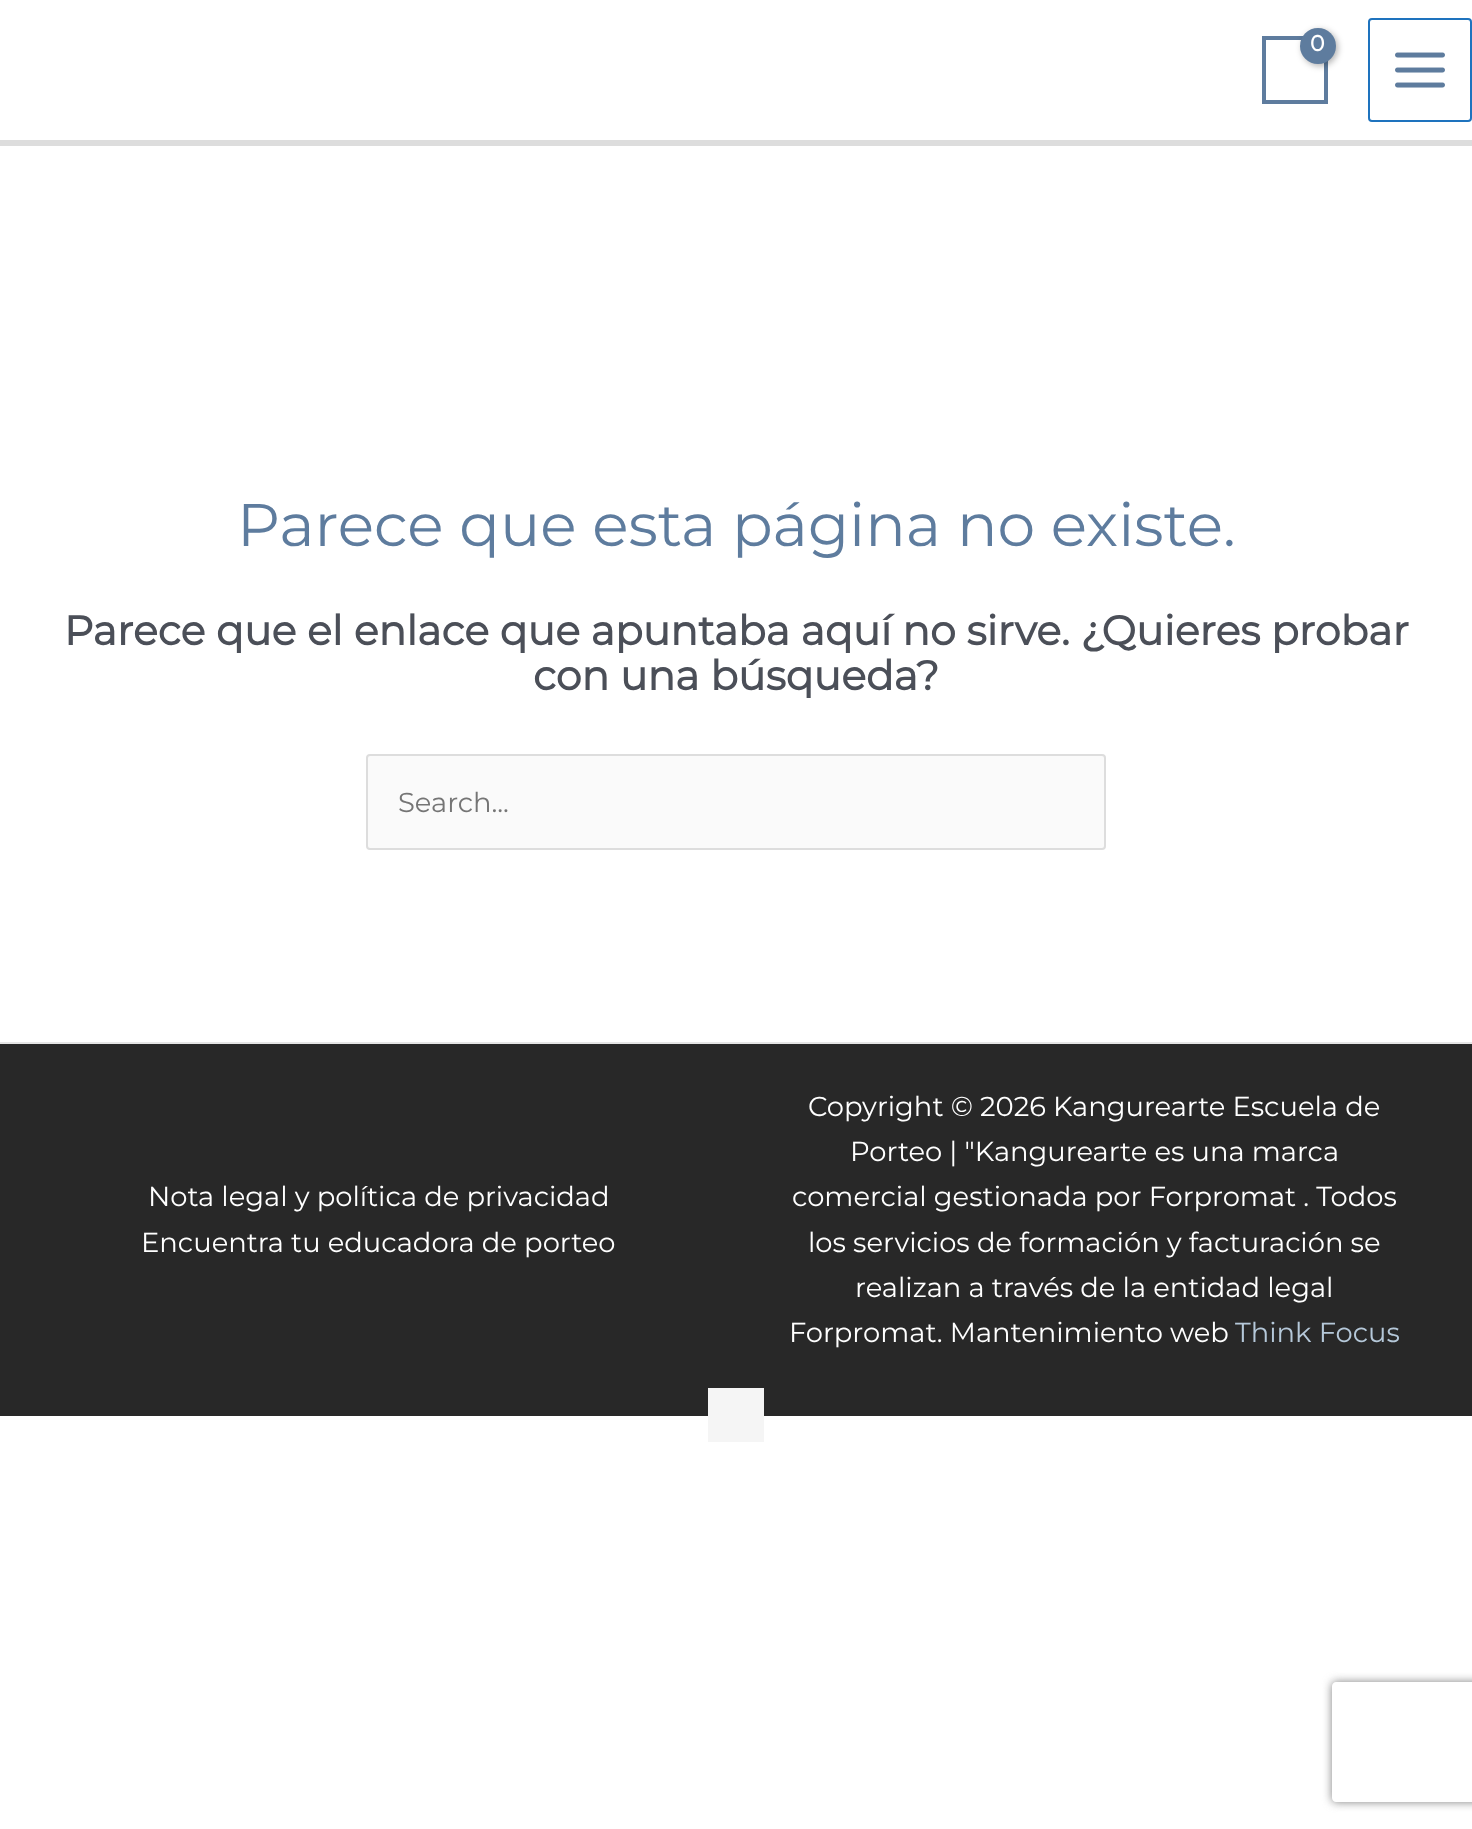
<svg xmlns="http://www.w3.org/2000/svg" width="1472" height="1829">
	<defs>
		<clipPath id="clip1"><path d="M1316 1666H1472V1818H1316ZM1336 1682H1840C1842 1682 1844 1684 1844 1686V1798C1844 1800 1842 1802 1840 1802H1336C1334 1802 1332 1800 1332 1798V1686C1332 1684 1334 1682 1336 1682Z" clip-rule="evenodd" /></clipPath>
	</defs>
	<rect width="100%" height="100%" fill="#FFFFFF" />
	<rect x="0" y="140" width="1472" height="6" fill="#DDDDDD" />
	<rect x="1264" y="38" width="62" height="64" fill="none" stroke="#5E7C9E" stroke-width="4" />
	<rect x="1302" y="30" width="36" height="36" rx="18" fill="#000000" fill-opacity="0.3" filter="blur(3px)" />
	<circle cx="1318" cy="46" r="18" fill="#5E7C9E" />
	<text x="1310" y="51" font-family="Montserrat" font-size="22" font-weight="700" letter-spacing="-1" fill="#FFFFFF">0</text>
	<rect x="1369" y="19" width="102" height="102" rx="3" fill="none" stroke="#1E73BE" stroke-width="2" />
	<image x="1395" y="52" width="50" height="36" href="assets/img1.png" />
	<text x="237" y="546" font-family="Montserrat" font-size="60" font-weight="100" fill="#5E7C9E">Parece que esta página no existe.</text>
	<g font-family="Montserrat" font-size="41.05" font-weight="700" fill="#4B4F58">
		<text x="64" y="645">Parece que el enlace que apuntaba aquí no sirve. ¿Quieres probar</text>
		<text x="533" y="690">con una búsqueda?</text>
	</g>
	<rect x="367" y="755" width="738" height="94" rx="3" fill="#FAFAFA" stroke="#DDDDDD" stroke-width="2" />
	<text x="398" y="812" font-family="Montserrat" font-size="27.4" font-weight="100" fill="#757575">Search...</text>
	<rect x="0" y="1044" width="1472" height="372" fill="#282828" />
	<rect x="0" y="1042" width="1472" height="2" fill="#E5E5E5" />
	<g font-family="Montserrat" font-size="27.4" font-weight="100" fill="#FFFFFF">
		<text x="148" y="1206">Nota legal y política de privacidad</text>
		<text x="141" y="1252">Encuentra tu educadora de porteo</text>
		<text x="808" y="1116">Copyright © 2026 Kangurearte Escuela de</text>
		<text x="850" y="1161">Porteo | "Kangurearte es una marca</text>
		<text x="792" y="1206">comercial gestionada por Forpromat . Todos</text>
		<text x="808" y="1252">los servicios de formación y facturación se</text>
		<text x="855" y="1297">realizan a través de la entidad legal</text>
		<text x="789" y="1342">Forpromat. Mantenimiento web</text>
	</g>
	<text x="1235" y="1342" font-family="Montserrat" font-size="27.4" font-weight="100" fill="#B5C8D9">Think Focus</text>
	<rect x="708" y="1388" width="56" height="54" fill="#F5F5F5" />
	<g clip-path="url(#clip1)">
		<rect x="1332" y="1682" width="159" height="120" rx="4" fill="#808080" filter="blur(5px)" />
	</g>
</svg>
